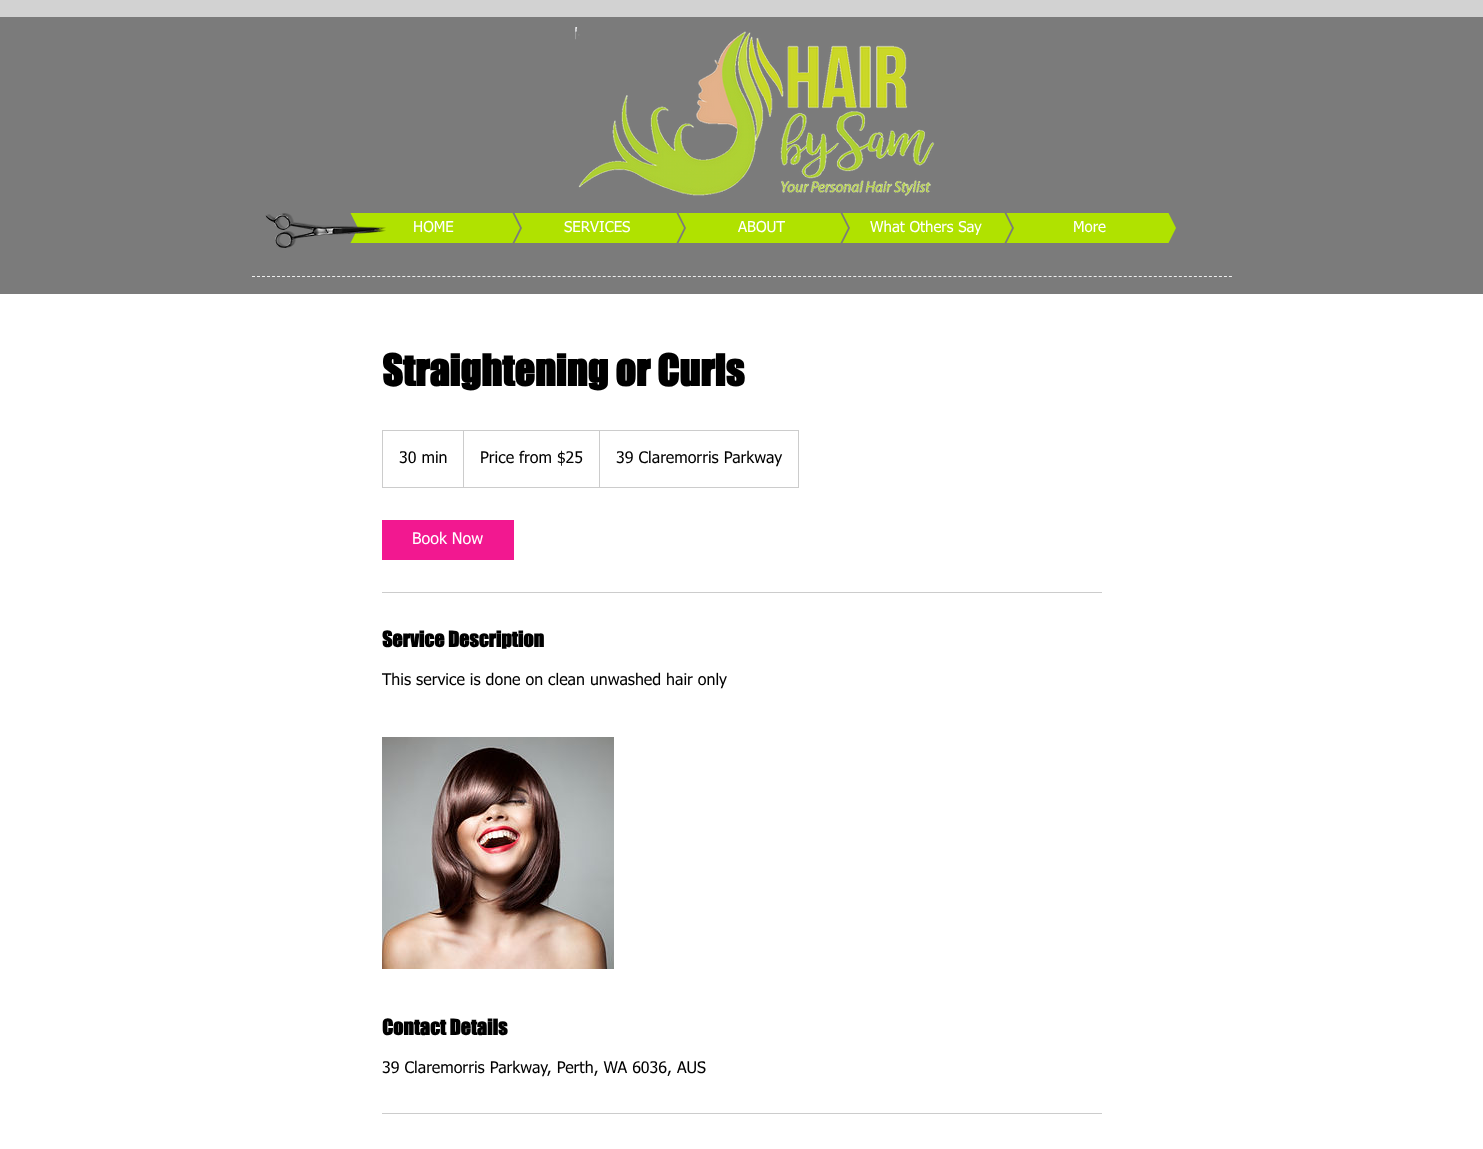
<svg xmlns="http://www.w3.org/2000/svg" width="1483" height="1149">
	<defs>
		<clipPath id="clip1"><rect x="288" y="213" width="70" height="30" /></clipPath>
		<clipPath id="clip2"><rect x="450" y="213" width="70" height="30" /></clipPath>
		<clipPath id="clip3"><rect x="452" y="213" width="70" height="30" /></clipPath>
		<clipPath id="clip4"><rect x="614" y="213" width="70" height="30" /></clipPath>
		<clipPath id="clip5"><rect x="616" y="213" width="70" height="30" /></clipPath>
		<clipPath id="clip6"><rect x="778" y="213" width="70" height="30" /></clipPath>
		<clipPath id="clip7"><rect x="780" y="213" width="70" height="30" /></clipPath>
		<clipPath id="clip8"><rect x="942" y="213" width="70" height="30" /></clipPath>
		<clipPath id="clip9"><rect x="944" y="213" width="70" height="30" /></clipPath>
		<clipPath id="clip10"><rect x="1106" y="213" width="70" height="30" /></clipPath>
	</defs>
	<rect width="100%" height="100%" fill="#FFFFFF" />
	<rect x="0" y="17" width="1483" height="277" fill="#7B7B7B" />
	<rect x="0" y="0" width="1483" height="17" fill="#D2D2D2" />
	<image x="575" y="27" width="360" height="169" href="assets/img1.png" />
	<g clip-path="url(#clip1)">
		<path d="M288 88H358V228ZM358 368H288L358 228Z" fill="#B0E200" />
	</g>
	<rect x="358" y="213" width="92" height="30" fill="#B0E200" />
	<image x="265" y="213" width="121" height="35" href="assets/img2.png" />
	<g clip-path="url(#clip2)">
		<path d="M520 228H450V88Z" fill="#B0E200" />
		<path d="M450 228H520L450 368Z" fill="#B0E200" />
	</g>
	<text x="413" y="232" font-family="tahoma" font-size="15" fill="#FFFFFF">HOME</text>
	<g clip-path="url(#clip3)">
		<path d="M452 88H522V228ZM522 368H452L522 228Z" fill="#B0E200" />
	</g>
	<rect x="522" y="213" width="92" height="30" fill="#B0E200" />
	<g clip-path="url(#clip4)">
		<path d="M684 228H614V88Z" fill="#B0E200" />
		<path d="M614 228H684L614 368Z" fill="#B0E200" />
	</g>
	<text x="564" y="232" font-family="tahoma" font-size="15" fill="#FFFFFF">SERVICES</text>
	<g clip-path="url(#clip5)">
		<path d="M616 88H686V228ZM686 368H616L686 228Z" fill="#B0E200" />
	</g>
	<rect x="686" y="213" width="92" height="30" fill="#B0E200" />
	<g clip-path="url(#clip6)">
		<path d="M848 228H778V88Z" fill="#B0E200" />
		<path d="M778 228H848L778 368Z" fill="#B0E200" />
	</g>
	<text x="738" y="232" font-family="tahoma" font-size="15" fill="#FFFFFF">ABOUT</text>
	<g clip-path="url(#clip7)">
		<path d="M780 88H850V228ZM850 368H780L850 228Z" fill="#B0E200" />
	</g>
	<rect x="850" y="213" width="92" height="30" fill="#B0E200" />
	<g clip-path="url(#clip8)">
		<path d="M1012 228H942V88Z" fill="#B0E200" />
		<path d="M942 228H1012L942 368Z" fill="#B0E200" />
	</g>
	<text x="870" y="232" font-family="tahoma" font-size="15" fill="#FFFFFF">What Others Say</text>
	<g clip-path="url(#clip9)">
		<path d="M944 88H1014V228ZM1014 368H944L1014 228Z" fill="#B0E200" />
	</g>
	<rect x="1014" y="213" width="92" height="30" fill="#B0E200" />
	<g clip-path="url(#clip10)">
		<path d="M1176 228H1106V88Z" fill="#B0E200" />
		<path d="M1106 228H1176L1106 368Z" fill="#B0E200" />
	</g>
	<text x="1073" y="232" font-family="tahoma" font-size="15" fill="#FFFFFF">More</text>
	<path d="M252 276.5H1232" fill="none" stroke="#EFEFEF" stroke-dasharray="3 2.01" />
	<text x="382" y="386" font-family="'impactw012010'" font-size="40" font-weight="700" fill="#000000">Straightening or Curls</text>
	<rect x="382.5" y="430.5" width="416" height="57" fill="none" stroke="#CCCCCC" />
	<text x="399" y="463" font-family="tahoma" font-size="16" fill="#000000">30 min</text>
	<path d="M463 487V430L464 431V487Z" fill="#CCCCCC" />
	<text x="480" y="463" font-family="tahoma" font-size="16" fill="#000000">Price from $25</text>
	<path d="M599 487V430L600 431V487Z" fill="#CCCCCC" />
	<text x="616" y="463" font-family="tahoma" font-size="16" fill="#000000">39 Claremorris Parkway</text>
	<rect x="382" y="520" width="132" height="40" fill="#F21890" />
	<text x="412" y="544" font-family="tahoma" font-size="16" fill="#FFFFFF">Book Now</text>
	<rect x="382" y="592" width="720" height="1" fill="#CCCCCC" />
	<text x="382" y="647" font-family="'impactw012010'" font-size="20" font-weight="700" fill="#000000">Service Description</text>
	<text x="382" y="685" font-family="tahoma" font-size="16" fill="#000000">This service is done on clean unwashed hair only</text>
	<image x="382" y="737" width="232" height="7" href="assets/img3.png" />
	<image x="382" y="744" width="232" height="225" href="assets/img4.png" />
	<text x="382" y="1035" font-family="'impactw012010'" font-size="20" font-weight="700" fill="#000000">Contact Details</text>
	<text x="382" y="1073" font-family="tahoma" font-size="16" fill="#000000">39 Claremorris Parkway, Perth, WA 6036, AUS</text>
	<rect x="382" y="1113" width="720" height="1" fill="#CCCCCC" />
</svg>
